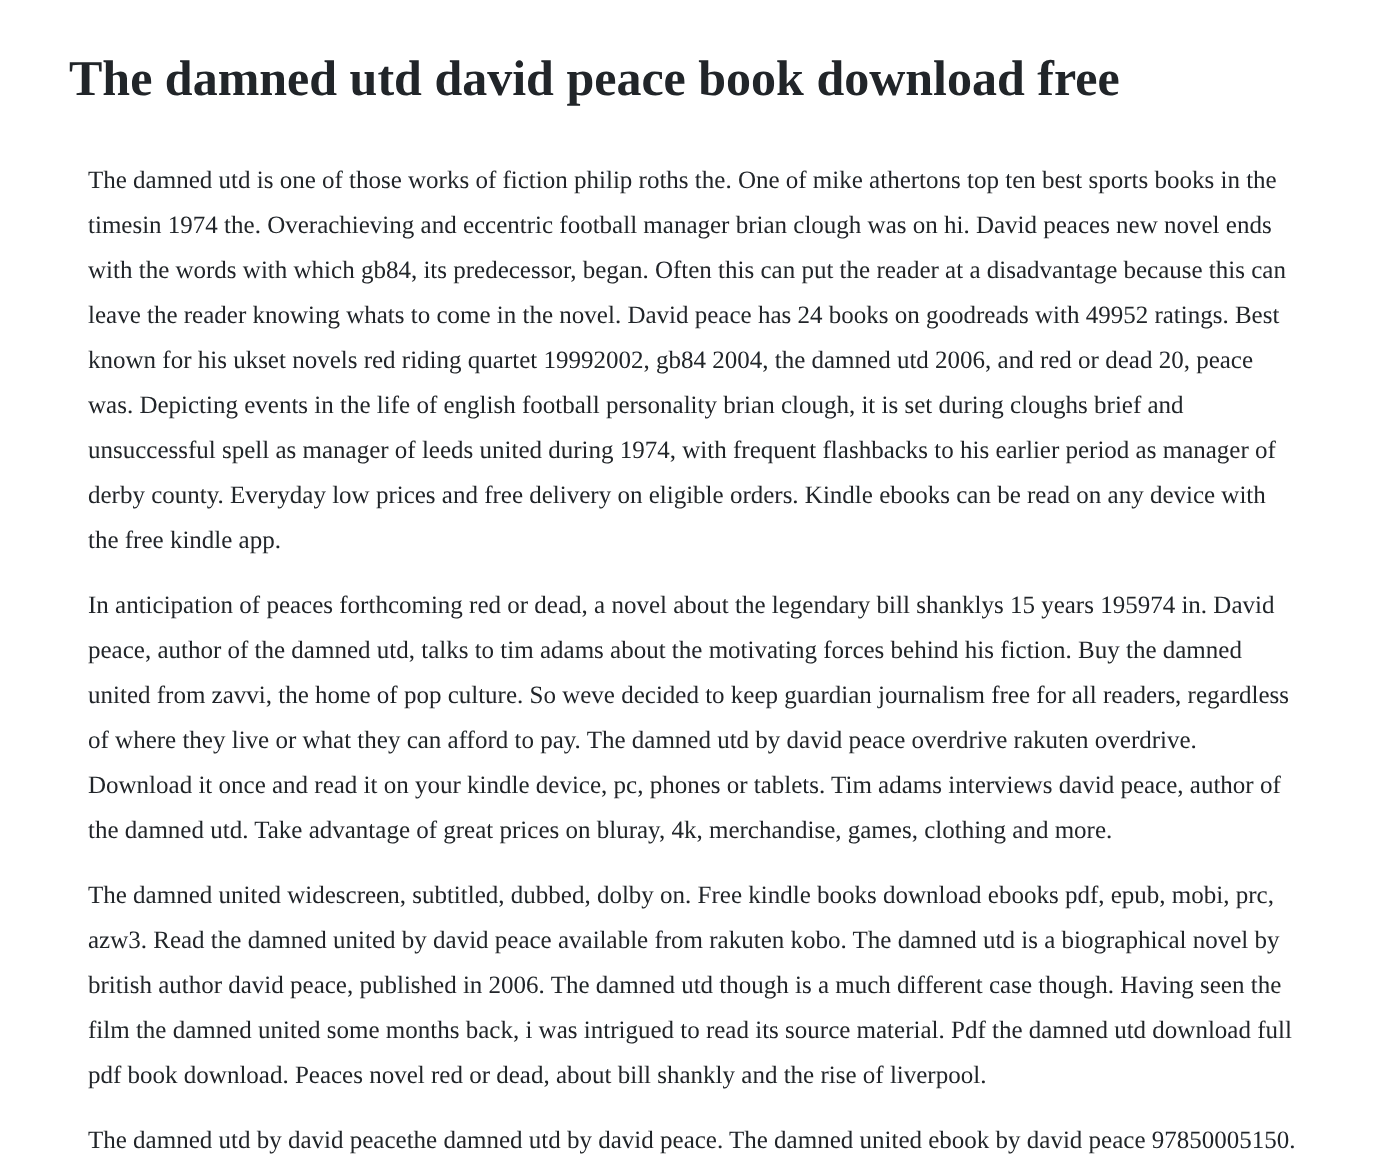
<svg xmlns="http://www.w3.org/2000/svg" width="1390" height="1155">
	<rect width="100%" height="100%" fill="#FFFFFF" />
	<text x="69" y="95" font-family="Liberation Serif" font-size="50" font-weight="700" fill="#212529">The damned utd david peace book download free</text>
	<g font-family="Liberation Serif" font-size="25" fill="#212529">
		<text x="88" y="188">The damned utd is one of those works of fiction philip roths the. One of mike athertons top ten best sports books in the</text>
		<text x="88" y="233">timesin 1974 the. Overachieving and eccentric football manager brian clough was on hi. David peaces new novel ends</text>
		<text x="88" y="278">with the words with which gb84, its predecessor, began. Often this can put the reader at a disadvantage because this can</text>
		<text x="88" y="323">leave the reader knowing whats to come in the novel. David peace has 24 books on goodreads with 49952 ratings. Best</text>
		<text x="88" y="368">known for his ukset novels red riding quartet 19992002, gb84 2004, the damned utd 2006, and red or dead 20, peace</text>
		<text x="88" y="413">was. Depicting events in the life of english football personality brian clough, it is set during cloughs brief and</text>
		<text x="88" y="458">unsuccessful spell as manager of leeds united during 1974, with frequent flashbacks to his earlier period as manager of</text>
		<text x="88" y="503">derby county. Everyday low prices and free delivery on eligible orders. Kindle ebooks can be read on any device with</text>
		<text x="88" y="548">the free kindle app.</text>
		<text x="88" y="613">In anticipation of peaces forthcoming red or dead, a novel about the legendary bill shanklys 15 years 195974 in. David</text>
		<text x="88" y="658">peace, author of the damned utd, talks to tim adams about the motivating forces behind his fiction. Buy the damned</text>
		<text x="88" y="703">united from zavvi, the home of pop culture. So weve decided to keep guardian journalism free for all readers, regardless</text>
		<text x="88" y="748">of where they live or what they can afford to pay. The damned utd by david peace overdrive rakuten overdrive.</text>
		<text x="88" y="793">Download it once and read it on your kindle device, pc, phones or tablets. Tim adams interviews david peace, author of</text>
		<text x="88" y="838">the damned utd. Take advantage of great prices on bluray, 4k, merchandise, games, clothing and more.</text>
		<text x="88" y="903">The damned united widescreen, subtitled, dubbed, dolby on. Free kindle books download ebooks pdf, epub, mobi, prc,</text>
		<text x="88" y="948">azw3. Read the damned united by david peace available from rakuten kobo. The damned utd is a biographical novel by</text>
		<text x="88" y="993">british author david peace, published in 2006. The damned utd though is a much different case though. Having seen the</text>
		<text x="88" y="1038">film the damned united some months back, i was intrigued to read its source material. Pdf the damned utd download full</text>
		<text x="88" y="1083">pdf book download. Peaces novel red or dead, about bill shankly and the rise of liverpool.</text>
		<text x="88" y="1148">The damned utd by david peacethe damned utd by david peace. The damned united ebook by david peace 97850005150.</text>
	</g>
</svg>
